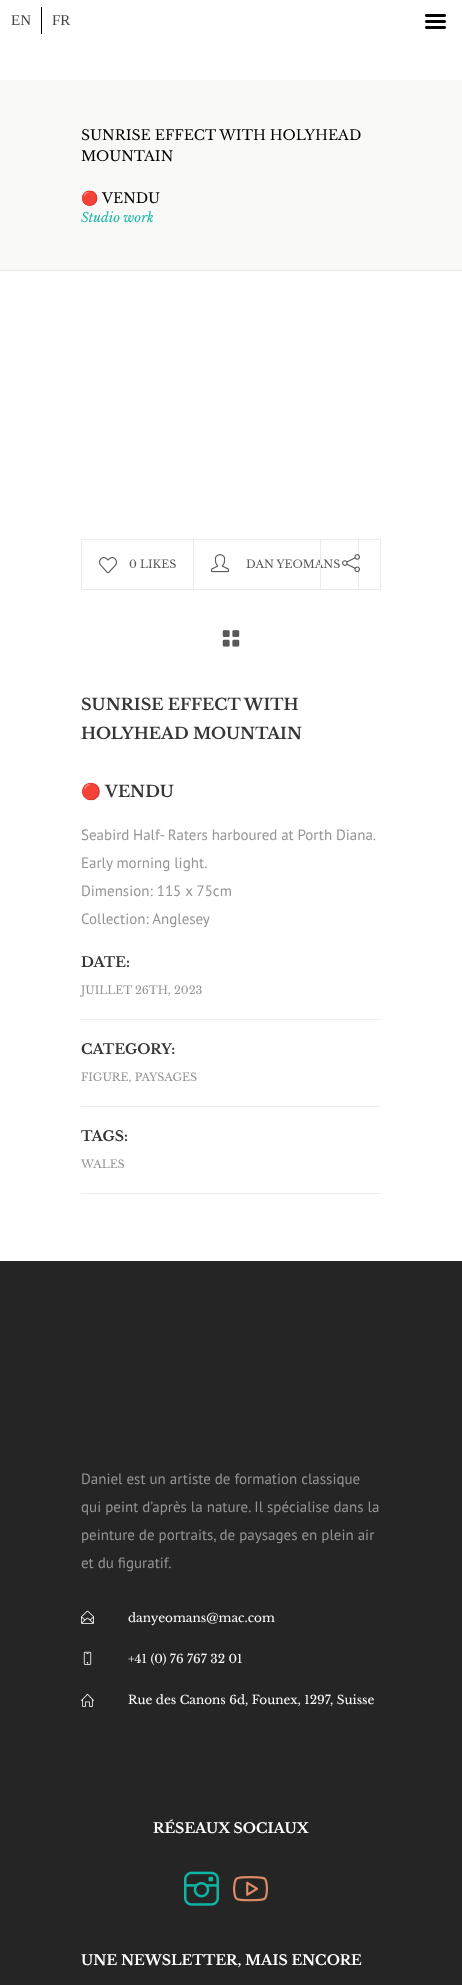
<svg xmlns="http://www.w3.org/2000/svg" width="462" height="1985">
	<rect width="100%" height="100%" fill="#FFFFFF" />
	<rect x="41" y="7" width="1" height="27" fill="#000000" />
	<g font-family="Liberation Serif" font-size="15" fill="#444444">
		<text x="11" y="25">EN</text>
		<text x="52" y="25">FR</text>
	</g>
	<image x="425" y="14" width="21" height="15" href="assets/img1.png" />
	<rect x="0" y="80" width="462" height="190" fill="#F9F9F8" />
	<rect x="0" y="270" width="462" height="1" fill="#E9E9E8" />
	<g font-family="Libre Baskerville" font-size="14" fill="#000000">
		<text x="81" y="140">SUNRISE EFFECT WITH HOLYHEAD</text>
		<text x="81" y="161">MOUNTAIN</text>
	</g>
	<text x="81" y="203" font-family="Noto Color Emoji" font-size="14" fill="#000000">🔴</text>
	<text x="102" y="203" font-family="Libre Baskerville" font-size="14" fill="#000000">VENDU</text>
	<text x="81" y="222" font-family="Libre Baskerville" font-size="13" font-style="italic" fill="#1AB8A6">Studio work</text>
	<rect x="81.5" y="539.5" width="299" height="50" fill="none" stroke="#EBEBEB" />
	<text x="246" y="568" font-family="Libre Baskerville" font-size="11" fill="#585858">DAN YEOMANS</text>
	<rect x="320" y="540" width="1" height="49" fill="#EBEBEB" />
	<rect x="358" y="540" width="1" height="49" fill="#EBEBEB" />
	<image x="342" y="554" width="18" height="19" href="assets/img2.png" />
	<rect x="193" y="540" width="1" height="48" fill="#EBEBEB" />
	<image x="99" y="557" width="18" height="17" href="assets/img3.png" />
	<text x="129" y="568" font-family="Libre Baskerville" font-size="11" fill="#585858">0 LIKES</text>
	<image x="211" y="554" width="18" height="19" href="assets/img4.png" />
	<image x="222" y="630" width="18" height="17" href="assets/img5.png" />
	<g font-family="Libre Baskerville" font-size="16" font-weight="700" fill="#363636">
		<text x="81" y="710">SUNRISE EFFECT WITH</text>
		<text x="81" y="739">HOLYHEAD MOUNTAIN</text>
	</g>
	<text x="81" y="797" font-family="Noto Color Emoji" font-size="16" font-weight="700" fill="#363636">🔴</text>
	<text x="105" y="797" font-family="Libre Baskerville" font-size="16" font-weight="700" fill="#363636">VENDU</text>
	<g font-family="PT Sans" font-size="15" fill="#959595">
		<text x="81" y="840" word-spacing="-0.25">Seabird Half- Raters harboured at Porth Diana.</text>
		<text x="81" y="868">Early morning light.</text>
		<text x="81" y="896">Dimension: 115 x 75cm</text>
		<text x="81" y="924">Collection: Anglesey</text>
	</g>
	<rect x="81" y="1019" width="300" height="1" fill="#ECECEC" />
	<text x="81" y="967" font-family="Libre Baskerville" font-size="14" font-weight="700" fill="#363636">DATE:</text>
	<text x="81" y="994" font-family="Libre Baskerville" font-size="11" fill="#959595">JUILLET 26TH, 2023</text>
	<rect x="81" y="1106" width="300" height="1" fill="#ECECEC" />
	<text x="81" y="1054" font-family="Libre Baskerville" font-size="14" font-weight="700" fill="#363636">CATEGORY:</text>
	<text x="81" y="1081" font-family="Libre Baskerville" font-size="11" fill="#959595">FIGURE, PAYSAGES</text>
	<rect x="81" y="1193" width="300" height="1" fill="#ECECEC" />
	<text x="81" y="1141" font-family="Libre Baskerville" font-size="14" font-weight="700" fill="#363636">TAGS:</text>
	<text x="81" y="1168" font-family="Libre Baskerville" font-size="11" fill="#959595">WALES</text>
	<rect x="0" y="1261" width="462" height="724" fill="#252525" />
	<g font-family="PT Sans" font-size="15" fill="#959595">
		<text x="81" y="1484">Daniel est un artiste de formation classique</text>
		<text x="81" y="1512">qui peint d’après la nature. Il spécialise dans la</text>
		<text x="81" y="1540">peinture de portraits, de paysages en plein air</text>
		<text x="81" y="1568">et du figuratif.</text>
	</g>
	<image x="81" y="1610" width="13" height="14" href="assets/img6.png" />
	<text x="128" y="1622" font-family="Libre Baskerville" font-size="12" fill="#FFFFFF">danyeomans@mac.com</text>
	<image x="83" y="1651" width="9" height="14" href="assets/img7.png" />
	<text x="128" y="1663" font-family="Libre Baskerville" font-size="12" fill="#FFFFFF">+41 (0) 76 767 32 01</text>
	<image x="81" y="1693" width="13" height="14" href="assets/img8.png" />
	<text x="128" y="1704" font-family="Libre Baskerville" font-size="12" fill="#FFFFFF">Rue des Canons 6d, Founex, 1297, Suisse</text>
	<text x="153" y="1833" font-family="Libre Baskerville" font-size="14" font-weight="700" fill="#FFFFFF">RÉSEAUX SOCIAUX</text>
	<image x="184" y="1871" width="35" height="35" href="assets/img9.png" />
	<image x="233" y="1876" width="35" height="26" href="assets/img10.png" />
	<text x="81" y="1965" font-family="Libre Baskerville" font-size="14" font-weight="700" fill="#FFFFFF">UNE NEWSLETTER, MAIS ENCORE</text>
</svg>
